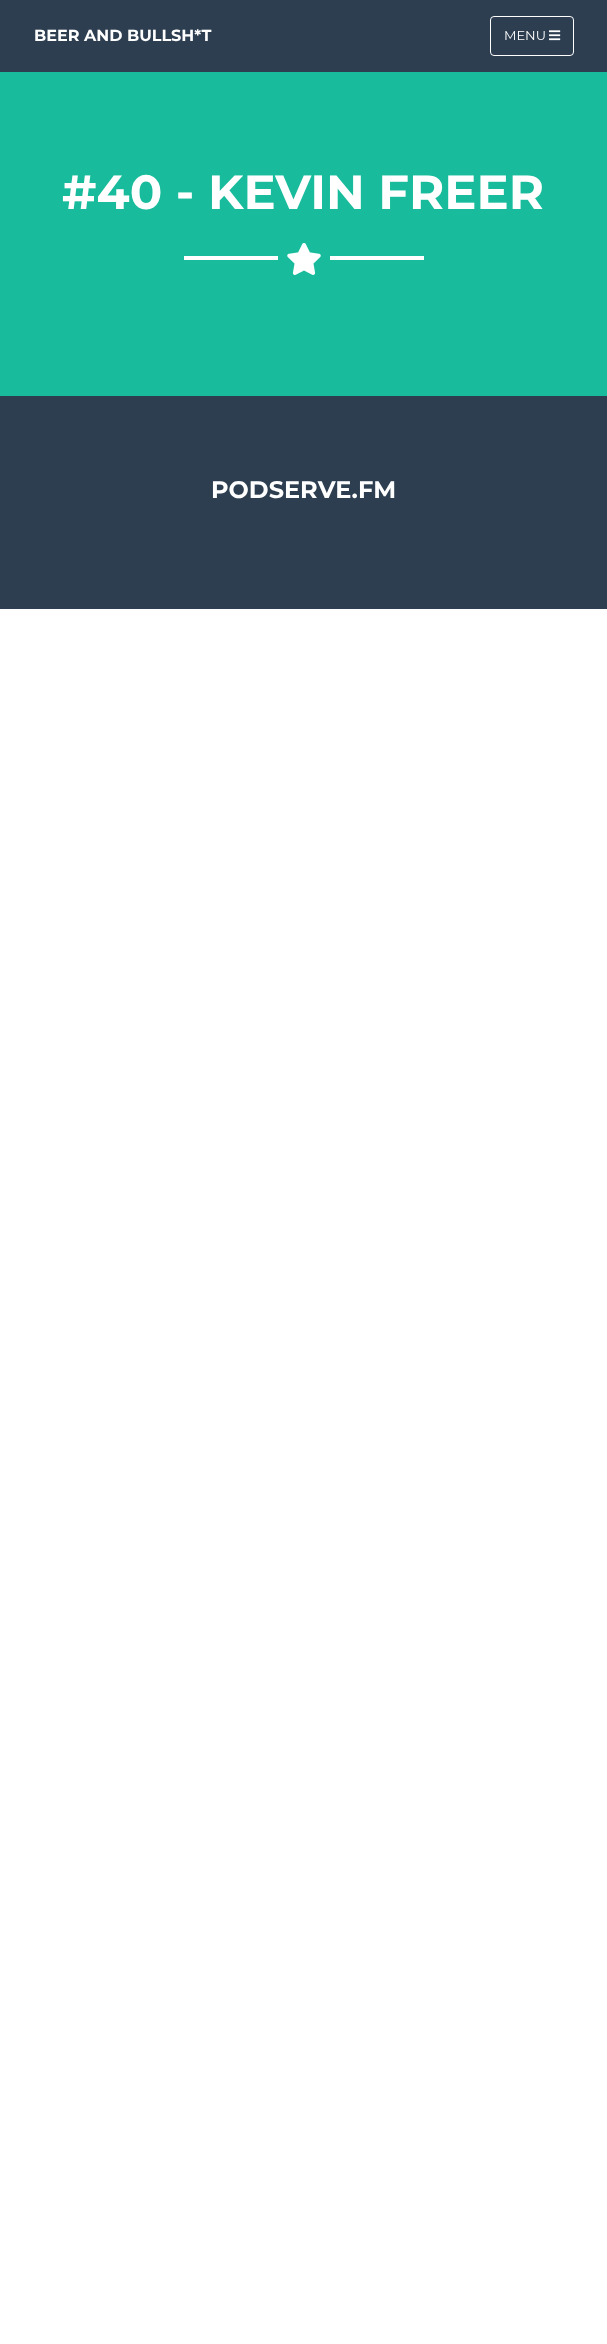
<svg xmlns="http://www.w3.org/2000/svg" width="607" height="2344">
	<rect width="100%" height="100%" fill="#FFFFFF" />
	<rect x="0" y="0" width="607" height="72" fill="#2C3E50" />
	<text x="34" y="41" font-family="Montserrat" font-size="16" font-weight="700" fill="#FFFFFF">BEER AND BULLSH*T</text>
	<rect x="490.5" y="16.5" width="83" height="39" rx="3.5" fill="none" stroke="#FFFFFF" />
	<text x="504" y="40" font-family="Montserrat" font-size="13" fill="#FFFFFF">MENU</text>
	<image x="549" y="30" width="12" height="11" href="assets/img1.png" />
	<rect x="0" y="72" width="607" height="324" fill="#18BC9C" />
	<text x="62" y="209" font-family="Montserrat" font-size="48" font-weight="700" fill="#FFFFFF">#40 - KEVIN FREER</text>
	<rect x="184" y="256" width="240" height="4" fill="#FFFFFF" />
	<rect x="278" y="256" width="52" height="4" fill="#18BC9C" />
	<image x="287" y="243" width="34" height="32" href="assets/img2.png" />
	<rect x="0" y="396" width="607" height="213" fill="#2C3E50" />
	<text x="211" y="498" font-family="Montserrat" font-size="24" font-weight="700" fill="#FFFFFF">PODSERVE.FM</text>
</svg>
